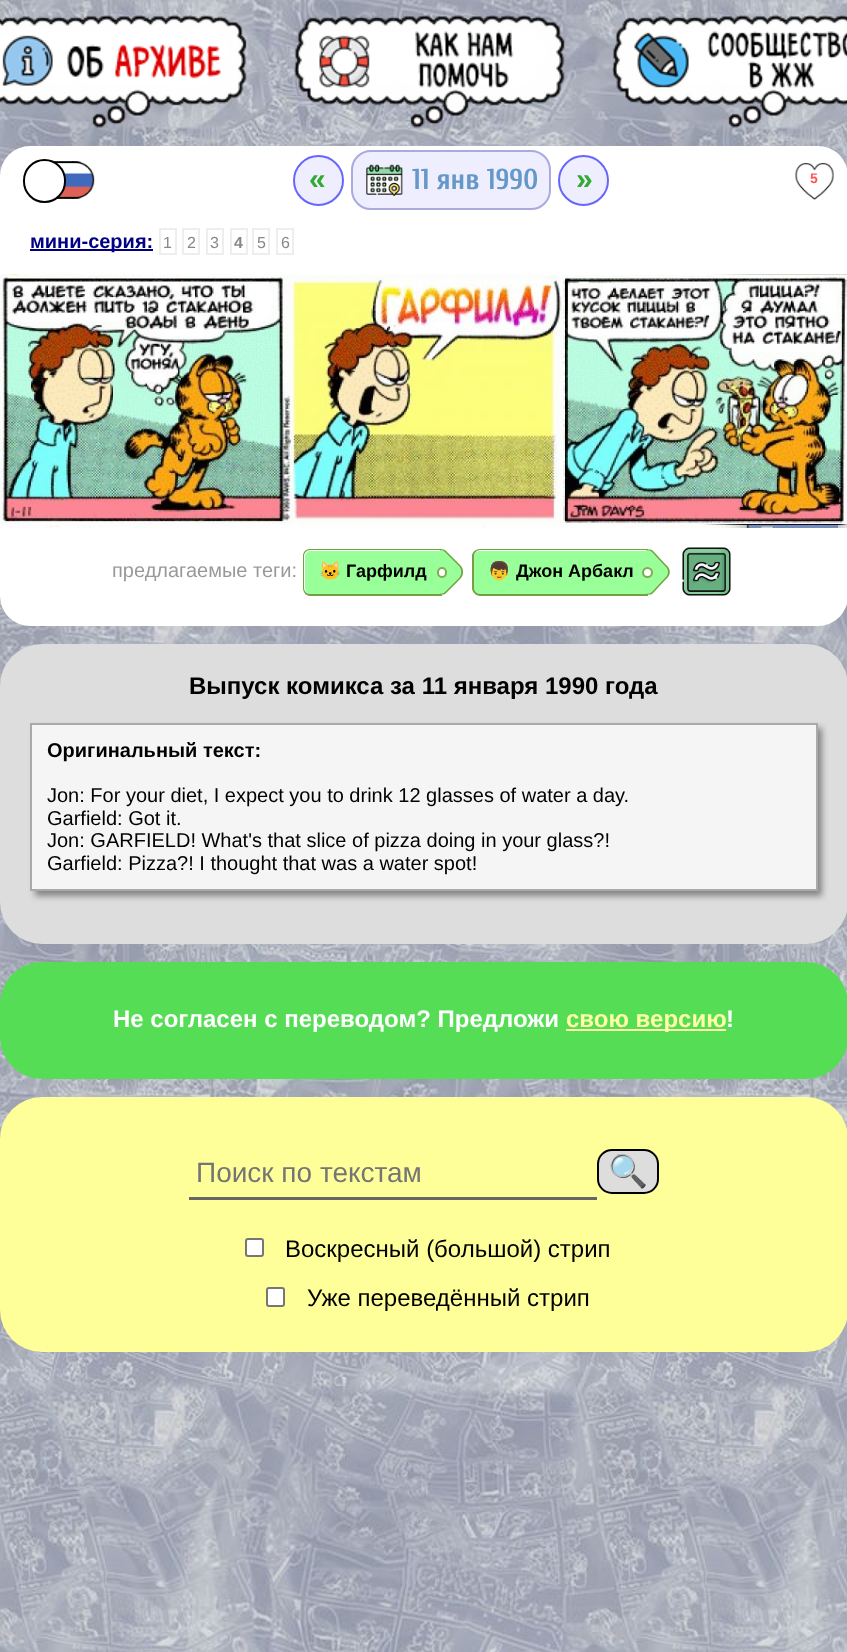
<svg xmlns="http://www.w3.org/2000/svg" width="847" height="1652">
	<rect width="100%" height="100%" fill="#FFFFFF" />
	<image x="0" y="0" width="847" height="1652" href="assets/img1.png" />
	<image x="0" y="15" width="247" height="113" href="assets/img2.png" />
	<image x="294" y="15" width="271" height="113" href="assets/img3.png" />
	<image x="612" y="15" width="235" height="113" href="assets/img4.png" />
	<rect x="0" y="146" width="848" height="480" rx="30" fill="#FFFFFF" />
	<image x="53" y="161" width="42" height="38" href="assets/img5.png" />
	<rect x="24" y="160" width="41" height="42" rx="20.5" fill="#FFFFFF" stroke="#000000" stroke-width="2" />
	<circle cx="318.5" cy="180.5" r="24.5" fill="#EEEEFF" stroke="#6666FF" stroke-width="2" />
	<text x="309" y="189" font-family="Liberation Sans" font-size="30" font-weight="700" fill="#33AA33">«</text>
	<rect x="351" y="150" width="200" height="60" rx="20" fill="#EEEEFF" />
	<image x="366" y="164" width="37" height="32" href="assets/img6.png" />
	<rect x="352" y="151" width="198" height="58" rx="19" fill="none" stroke="#AAAADD" stroke-width="2" />
	<text x="412" y="189" font-family="Cuprum" font-size="29" font-weight="700" fill="#6597C8">11 янв 1990</text>
	<circle cx="583.5" cy="180.5" r="24.5" fill="#EEEEFF" stroke="#6666FF" stroke-width="2" />
	<text x="576" y="189" font-family="Liberation Sans" font-size="30" font-weight="700" fill="#33AA33">»</text>
	<image x="794" y="162" width="41" height="38" href="assets/img7.png" />
	<text x="810" y="183" font-family="Liberation Sans" font-size="14" font-weight="700" fill="#FF5555">5</text>
	<rect x="30" y="249" width="123" height="2" fill="#000084" />
	<text x="30" y="248" font-family="Liberation Sans" font-size="20" font-weight="700" fill="#000084">мини-серия:</text>
	<rect x="160" y="229" width="16" height="25" fill="none" stroke="#EEEEEE" stroke-width="2" />
	<text x="163" y="248" font-family="Liberation Sans" font-size="16" fill="#888888">1</text>
	<rect x="183" y="229" width="16" height="25" fill="none" stroke="#EEEEEE" stroke-width="2" />
	<text x="187" y="248" font-family="Liberation Sans" font-size="16" fill="#888888">2</text>
	<rect x="207" y="229" width="16" height="25" fill="none" stroke="#EEEEEE" stroke-width="2" />
	<text x="210" y="248" font-family="Liberation Sans" font-size="16" fill="#888888">3</text>
	<rect x="231" y="229" width="16" height="25" fill="none" stroke="#EEEEEE" stroke-width="2" />
	<text x="234" y="248" font-family="Liberation Sans" font-size="16" font-weight="700" fill="#888888">4</text>
	<rect x="253" y="229" width="16" height="25" fill="none" stroke="#EEEEEE" stroke-width="2" />
	<text x="257" y="248" font-family="Liberation Sans" font-size="16" fill="#888888">5</text>
	<rect x="277" y="229" width="16" height="25" fill="none" stroke="#EEEEEE" stroke-width="2" />
	<text x="281" y="248" font-family="Liberation Sans" font-size="16" fill="#888888">6</text>
	<image x="0" y="274" width="847" height="1" href="assets/img8.png" />
	<image x="0" y="274" width="847" height="254" href="assets/img9.png" />
	<text x="112" y="577" font-family="Liberation Sans" font-size="20" fill="#999999">предлагаемые теги:</text>
	<path d="M311 551H443V594H311C307.5 594 305 591.5 305 588V557C305 553.5 307.5 551 311 551Z" fill="#99FF99" />
	<path d="M310 549H442V596H310C306 596 303 592 303 588V556C303 552 306 549 310 549ZM310 550H442V594H310C307 594 304 591 304 588V556C304 553 307 550 310 550Z" fill="#769E42" fill-rule="evenodd" />
	<text x="319" y="577" font-family="Noto Color Emoji" font-size="18" font-weight="700" fill="#000000">🐱</text>
	<path d="M446 551L460 565C464 569 464 575 460 579L446 593C444 595 441 595 440 593L418 572L440 551C441 549 444 549 446 551Z" fill="#99FF99" />
	<text x="346" y="577" font-family="Liberation Sans" font-size="18" font-weight="700" fill="#000000">Гарфилд</text>
	<path d="M446 551L460 565C464 569 464 575 460 579L446 593C444 595 441 595 440 593L418 572L440 551C441 549 444 549 446 551ZM445 552L459 566C462 569 462 575 459 578L445 592C443 594 441 594 440 593L418 572L440 551C441 550 443 550 445 552Z" fill="#769E42" fill-rule="evenodd" />
	<rect x="438" y="568" width="8" height="9" rx="4" fill="#FFFFFF" stroke="#83AB52" stroke-width="2" />
	<path d="M480 551H648V594H480C476.5 594 474 591.5 474 588V557C474 553.5 476.5 551 480 551Z" fill="#99FF99" />
	<path d="M480 549H648V596H480C476 596 472 592 472 588V556C472 552 476 549 480 549ZM480 550H648V594H480C477 594 474 591 474 588V556C474 553 477 550 480 550Z" fill="#769E42" fill-rule="evenodd" />
	<text x="488" y="577" font-family="Noto Color Emoji" font-size="18" font-weight="700" fill="#000000">👦</text>
	<path d="M653 551L666 565C671 569 671 575 666 579L653 593C651 595 648 595 646 593L625 572L646 551C648 549 651 549 653 551Z" fill="#99FF99" />
	<text x="516" y="577" font-family="Liberation Sans" font-size="18" font-weight="700" fill="#000000">Джон Арбакл</text>
	<path d="M653 551L666 565C671 569 671 575 666 579L653 593C651 595 648 595 646 593L625 572L646 551C648 549 651 549 653 551ZM652 552L665 566C669 569 669 575 665 578L652 592C650 594 647 594 646 593L625 572L646 551C647 550 650 550 652 552Z" fill="#769E42" fill-rule="evenodd" />
	<circle cx="647.5" cy="572.5" r="4.5" fill="#FFFFFF" stroke="#83AB52" stroke-width="2" />
	<image x="682" y="547" width="49" height="49" href="assets/img10.png" />
	<rect x="0" y="644" width="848" height="300" rx="42" fill="#DDDDDD" />
	<text x="189" y="694" font-family="Liberation Sans" font-size="24" font-weight="700" fill="#000000">Выпуск комикса за 11 января 1990 года</text>
	<rect x="35" y="728" width="787" height="168" fill="#000000" fill-opacity="0.4" filter="blur(3px)" />
	<rect x="31" y="724" width="786" height="166" fill="#F5F5F5" stroke="#AAAAAA" stroke-width="2" />
	<text x="47" y="757" font-family="Liberation Sans" font-size="20" font-weight="700" fill="#000000">Оригинальный текст:</text>
	<g font-family="Liberation Sans" font-size="20" fill="#000000">
		<text x="47" y="802">Jon: For your diet, I expect you to drink 12 glasses of water a day.</text>
		<text x="47" y="825">Garfield: Got it.</text>
		<text x="47" y="847">Jon: GARFIELD! What's that slice of pizza doing in your glass?!</text>
		<text x="47" y="870">Garfield: Pizza?! I thought that was a water spot!</text>
	</g>
	<rect x="0" y="962" width="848" height="117" rx="42" fill="#55DD55" />
	<text x="113" y="1027" font-family="Liberation Sans" font-size="24" font-weight="700" fill="#FFFFFF">Не согласен с переводом? Предложи</text>
	<rect x="566" y="1029" width="160" height="2" fill="#FFFFAA" />
	<text x="566" y="1027" font-family="Liberation Sans" font-size="24" font-weight="700" fill="#FFFFAA">свою версию</text>
	<text x="726" y="1027" font-family="Liberation Sans" font-size="24" font-weight="700" fill="#FFFFFF">!</text>
	<rect x="0" y="1097" width="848" height="255" rx="42" fill="#FFFF99" />
	<rect x="189" y="1197" width="408" height="3" fill="#666666" />
	<text x="196" y="1182" font-family="Liberation Sans" font-size="28" fill="#757575">Поиск по текстам</text>
	<rect x="598" y="1150" width="60" height="43" rx="14" fill="#DDDDDD" stroke="#000000" stroke-width="2" />
	<text x="608" y="1182" font-family="Noto Color Emoji" font-size="32" fill="#000000">🔍</text>
	<rect x="246" y="1239" width="17" height="17" rx="2" fill="#FFFFFF" stroke="#767676" stroke-width="2" />
	<text x="285" y="1257" font-family="Liberation Sans" font-size="24" fill="#000000">Воскресный (большой) стрип</text>
	<rect x="267" y="1288" width="17" height="18" rx="2" fill="#FFFFFF" stroke="#767676" stroke-width="2" />
	<text x="307" y="1306" font-family="Liberation Sans" font-size="24" fill="#000000">Уже переведённый стрип</text>
</svg>
